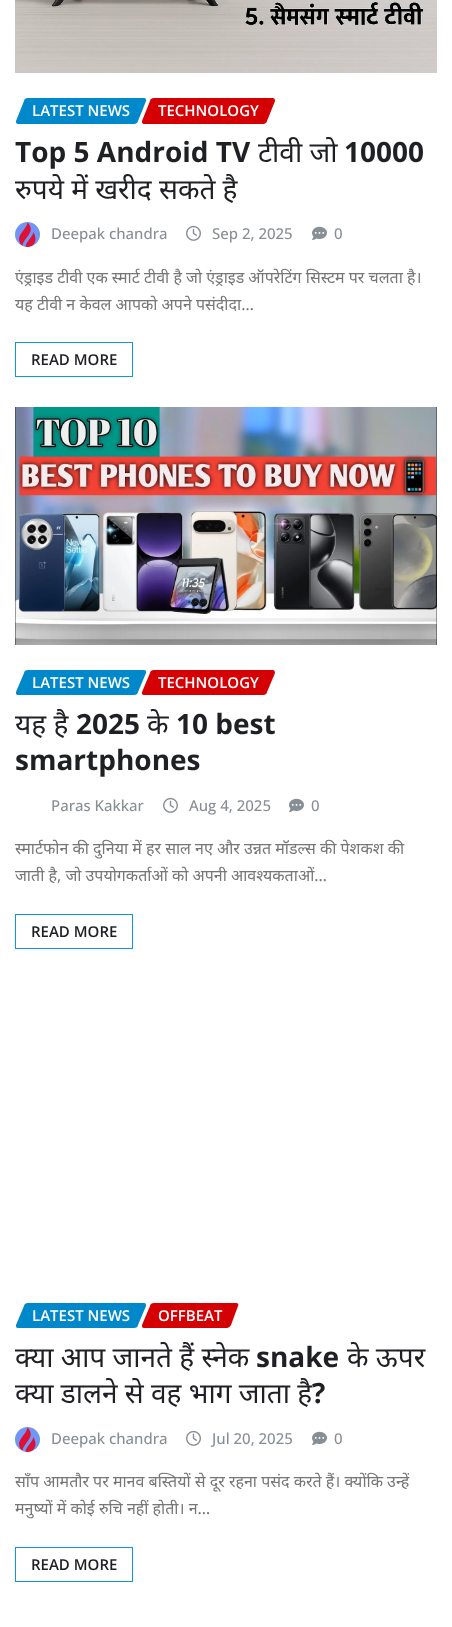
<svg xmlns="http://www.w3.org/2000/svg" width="452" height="1627">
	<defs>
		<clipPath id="clip1"><rect x="15" y="73" width="422" height="304" /></clipPath>
		<clipPath id="clip2"><rect x="15" y="1278" width="422" height="304" /></clipPath>
	</defs>
	<rect width="100%" height="100%" fill="#FFFFFF" />
	<image x="15" y="0" width="422" height="73" href="assets/img1.png" />
	<path d="M28 98H144C146 98 146 99 146 101L138 121C138 122 136 124 134 124H18C16 124 16 122 16 121L24 101C24 99 26 98 28 98Z" fill="#0088CB" />
	<text x="32" y="116" font-family="Open Sans" font-size="15" font-weight="600" fill="#FFFFFF">LATEST NEWS</text>
	<path d="M154 98H273C274 98 275 99 275 101L267 121C267 122 265 124 263 124H144C142 124 142 122 142 121L150 101C150 99 152 98 154 98Z" fill="#D40004" />
	<text x="158" y="116" font-family="Open Sans" font-size="15" font-weight="600" fill="#FFFFFF">TECHNOLOGY</text>
	<text x="15" y="162" font-family="Open Sans" font-size="28" font-weight="700" fill="#1F2024">Top 5 Android TV</text>
	<text x="258" y="162" font-family="Noto Sans" font-size="28" fill="#1F2024">टीवी जो</text>
	<text x="344" y="162" font-family="Open Sans" font-size="28" font-weight="700" fill="#1F2024">10000</text>
	<text x="15" y="199" font-family="Noto Sans" font-size="28" fill="#1F2024">रुपये में खरीद सकते है</text>
	<image x="15" y="222" width="25" height="25" href="assets/img2.png" />
	<text x="51" y="239" font-family="Open Sans" font-size="15" font-weight="500" fill="#878E94">Deepak chandra</text>
	<image x="186" y="225" width="15" height="16" href="assets/img3.png" />
	<text x="212" y="239" font-family="Open Sans" font-size="15" font-weight="500" fill="#878E94">Sep 2, 2025</text>
	<image x="312" y="226" width="15" height="14" href="assets/img4.png" />
	<text x="334" y="239" font-family="Open Sans" font-size="15" font-weight="500" fill="#878E94">0</text>
	<g clip-path="url(#clip1)">
		<text x="15" y="283" font-family="Noto Sans" font-size="16" fill="#767676">एंड्राइड टीवी एक स्मार्ट टीवी है जो एंड्राइड ऑपरेटिंग सिस्टम पर चलता है।</text>
	</g>
	<text x="15" y="310" font-family="Noto Sans" font-size="16" fill="#767676">यह टीवी न केवल आपको अपने पसंदीदा…</text>
	<rect x="15.5" y="342.5" width="117" height="34" fill="none" stroke="#0E98D6" />
	<text x="31" y="365" font-family="Open Sans" font-size="15" font-weight="600" fill="#1F2024">READ MORE</text>
	<image x="15" y="407" width="422" height="238" href="assets/img5.png" />
	<path d="M28 670H144C146 670 146 671 146 673L138 692C138 694 136 695 134 695H18C16 695 16 694 16 692L24 673C24 671 26 670 28 670Z" fill="#0088CB" />
	<text x="32" y="688" font-family="Open Sans" font-size="15" font-weight="600" fill="#FFFFFF">LATEST NEWS</text>
	<path d="M154 670H273C274 670 275 671 275 673L267 692C267 694 265 695 263 695H144C142 695 142 694 142 692L150 673C150 671 152 670 154 670Z" fill="#D40004" />
	<text x="158" y="688" font-family="Open Sans" font-size="15" font-weight="600" fill="#FFFFFF">TECHNOLOGY</text>
	<text x="15" y="734" font-family="Noto Sans" font-size="28" fill="#1F2024">यह है</text>
	<text x="76" y="734" font-family="Open Sans" font-size="28" font-weight="700" fill="#1F2024">2025</text>
	<text x="147" y="734" font-family="Noto Sans" font-size="28" fill="#1F2024">के</text>
	<g font-family="Open Sans" font-size="28" font-weight="700" fill="#1F2024">
		<text x="176" y="734">10 best</text>
		<text x="15" y="770">smartphones</text>
	</g>
	<text x="51" y="811" font-family="Open Sans" font-size="15" font-weight="500" fill="#878E94">Paras Kakkar</text>
	<image x="163" y="797" width="15" height="16" href="assets/img3.png" />
	<text x="189" y="811" font-family="Open Sans" font-size="15" font-weight="500" fill="#878E94">Aug 4, 2025</text>
	<image x="289" y="798" width="15" height="14" href="assets/img4.png" />
	<text x="311" y="811" font-family="Open Sans" font-size="15" font-weight="500" fill="#878E94">0</text>
	<g font-family="Noto Sans" font-size="16" fill="#767676">
		<text x="15" y="854">स्मार्टफोन की दुनिया में हर साल नए और उन्नत मॉडल्स की पेशकश की</text>
		<text x="15" y="881">जाती है, जो उपयोगकर्ताओं को अपनी आवश्यकताओं…</text>
	</g>
	<rect x="15.5" y="914.5" width="117" height="34" fill="none" stroke="#0E98D6" />
	<text x="31" y="937" font-family="Open Sans" font-size="15" font-weight="600" fill="#1F2024">READ MORE</text>
	<path d="M28 1303H144C146 1303 146 1304 146 1306L138 1325C138 1327 136 1328 134 1328H18C16 1328 16 1327 16 1325L24 1306C24 1304 26 1303 28 1303Z" fill="#0088CB" />
	<text x="32" y="1321" font-family="Open Sans" font-size="15" font-weight="600" fill="#FFFFFF">LATEST NEWS</text>
	<path d="M154 1303H236C238 1303 239 1304 238 1306L231 1325C230 1327 228 1328 227 1328H144C142 1328 142 1327 142 1325L150 1306C150 1304 152 1303 154 1303Z" fill="#D40004" />
	<text x="158" y="1321" font-family="Open Sans" font-size="15" font-weight="600" fill="#FFFFFF">OFFBEAT</text>
	<text x="15" y="1367" font-family="Noto Sans" font-size="28" fill="#1F2024">क्या आप जानते हैं स्नेक</text>
	<text x="256" y="1367" font-family="Open Sans" font-size="28" font-weight="700" fill="#1F2024">snake</text>
	<g font-family="Noto Sans" font-size="28" fill="#1F2024">
		<text x="347" y="1367">के ऊपर</text>
		<text x="15" y="1403">क्या डालने से वह भाग जाता है</text>
	</g>
	<text x="312" y="1403" font-family="Open Sans" font-size="28" font-weight="700" fill="#1F2024">?</text>
	<image x="15" y="1427" width="25" height="25" href="assets/img2.png" />
	<text x="51" y="1444" font-family="Open Sans" font-size="15" font-weight="500" fill="#878E94">Deepak chandra</text>
	<image x="186" y="1430" width="15" height="16" href="assets/img3.png" />
	<text x="212" y="1444" font-family="Open Sans" font-size="15" font-weight="500" fill="#878E94">Jul 20, 2025</text>
	<image x="312" y="1431" width="15" height="14" href="assets/img4.png" />
	<text x="334" y="1444" font-family="Open Sans" font-size="15" font-weight="500" fill="#878E94">0</text>
	<g clip-path="url(#clip2)">
		<text x="15" y="1487" font-family="Noto Sans" font-size="16" fill="#767676">साँप आमतौर पर मानव बस्तियों से दूर रहना पसंद करते हैं। क्योंकि उन्हें</text>
	</g>
	<text x="15" y="1514" font-family="Noto Sans" font-size="16" fill="#767676">मनुष्यों में कोई रुचि नहीं होती। न…</text>
	<rect x="15.5" y="1547.5" width="117" height="34" fill="none" stroke="#0E98D6" />
	<text x="31" y="1570" font-family="Open Sans" font-size="15" font-weight="600" fill="#1F2024">READ MORE</text>
</svg>
